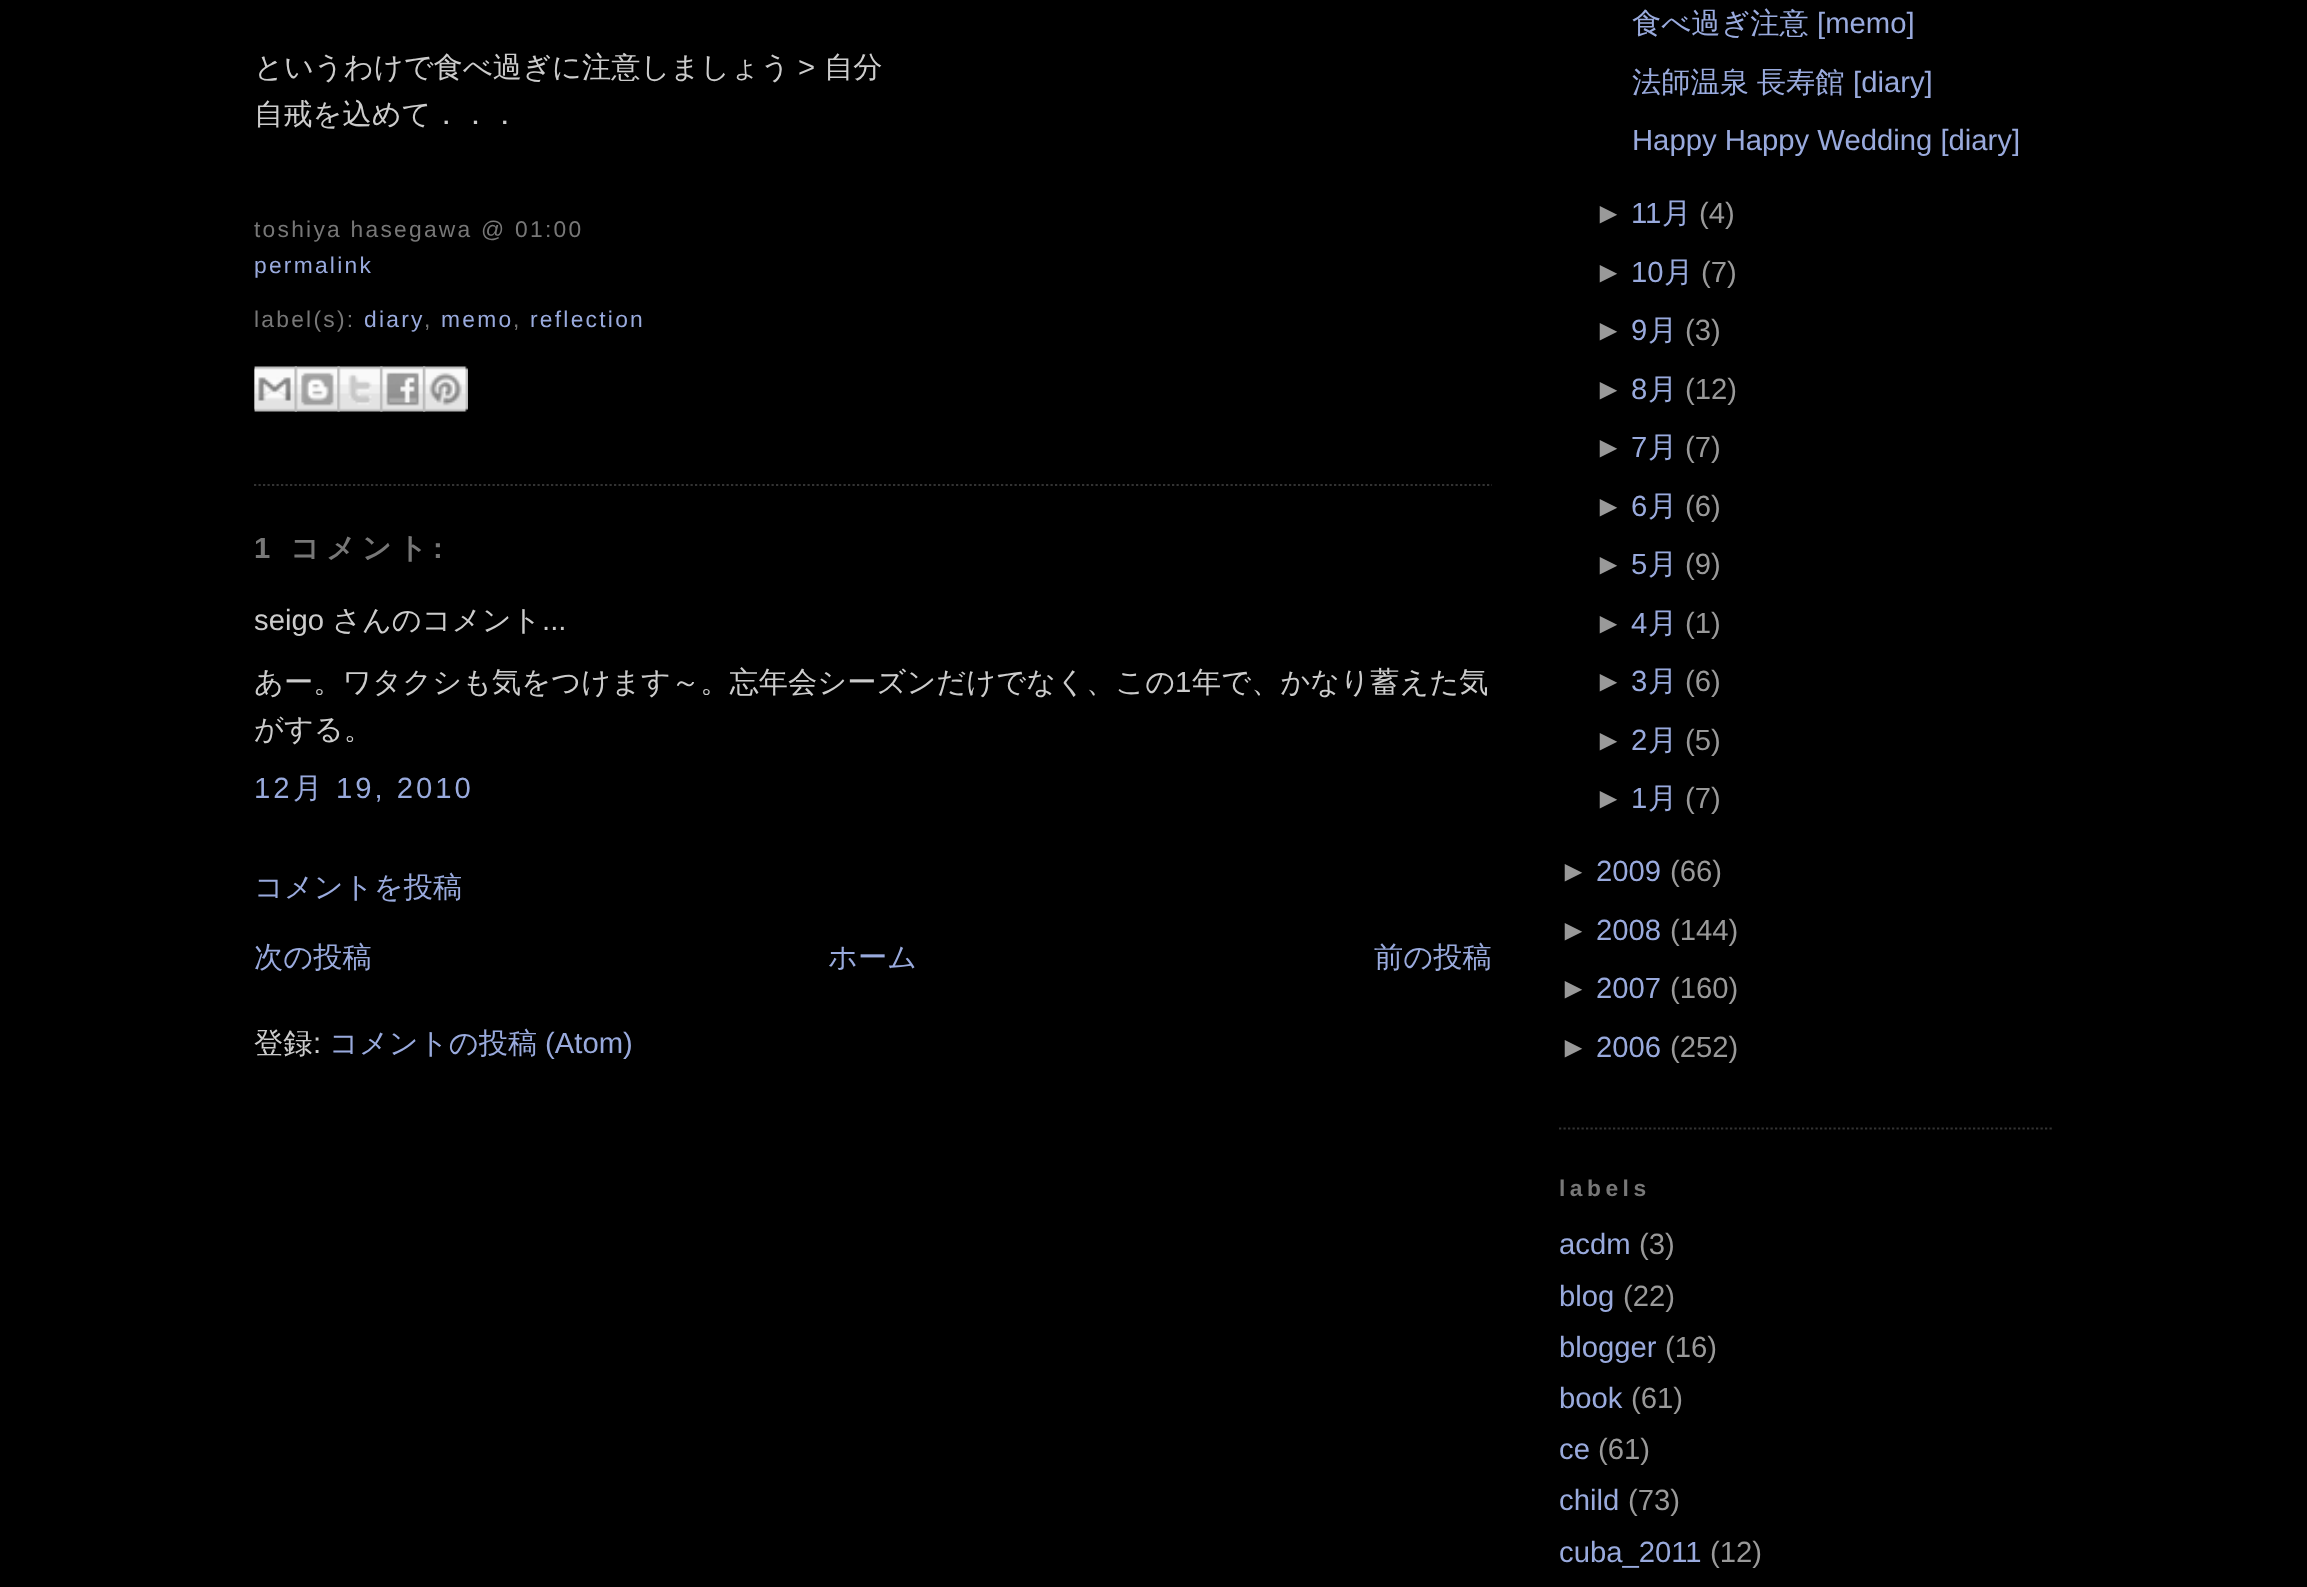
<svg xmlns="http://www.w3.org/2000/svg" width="2307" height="1587">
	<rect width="100%" height="100%" fill="#000000" />
	<path d="M254 485H1492" fill="none" stroke="#333333" stroke-width="2.2" stroke-dasharray="2.25 2.25" />
	<text x="254" y="77" font-family="WenQuanYi Zen Hei" font-size="29.25" font-weight="500" fill="#CCCCCC">というわけで食べ過ぎに注意しましょう</text>
	<text x="798" y="77" font-family="Liberation Sans" font-size="29.25" fill="#CCCCCC">&gt;</text>
	<g font-family="WenQuanYi Zen Hei" font-size="29.25" font-weight="500" fill="#CCCCCC">
		<text x="824" y="77">自分</text>
		<text x="254" y="124">自戒を込めて．．．</text>
	</g>
	<text x="254" y="237" font-family="Liberation Sans" font-size="22.8" letter-spacing="2.25" fill="#777777">toshiya hasegawa @ 01:00</text>
	<text x="254" y="273" font-family="Liberation Sans" font-size="22.8" letter-spacing="2.25" fill="#99AADD">permalink</text>
	<text x="254" y="327" font-family="Liberation Sans" font-size="22.8" letter-spacing="2.25" fill="#777777">label(s):</text>
	<text x="364" y="327" font-family="Liberation Sans" font-size="22.8" letter-spacing="2.25" fill="#99AADD">diary</text>
	<text x="424" y="327" font-family="Liberation Sans" font-size="22.8" letter-spacing="2.25" fill="#777777">,</text>
	<text x="441" y="327" font-family="Liberation Sans" font-size="22.8" letter-spacing="2.25" fill="#99AADD">memo</text>
	<text x="513" y="327" font-family="Liberation Sans" font-size="22.8" letter-spacing="2.25" fill="#777777">,</text>
	<text x="530" y="327" font-family="Liberation Sans" font-size="22.8" letter-spacing="2.25" fill="#99AADD">reflection</text>
	<image x="254" y="366" width="43" height="46" href="assets/img1.png" />
	<image x="294" y="366" width="46" height="46" href="assets/img2.png" />
	<image x="337" y="366" width="46" height="46" href="assets/img3.png" />
	<image x="380" y="366" width="46" height="46" href="assets/img4.png" />
	<image x="423" y="366" width="45" height="46" href="assets/img5.png" />
	<text x="254" y="558" font-family="Liberation Sans" font-size="29.25" font-weight="700" letter-spacing="6" fill="#777777">1</text>
	<text x="290" y="558" font-family="WenQuanYi Zen Hei" font-size="29.25" font-weight="700" letter-spacing="6" fill="#777777">コメント</text>
	<text x="433" y="558" font-family="Liberation Sans" font-size="29.25" font-weight="700" letter-spacing="6" fill="#777777">:</text>
	<text x="254" y="630" font-family="Liberation Sans" font-size="29.25" fill="#CCCCCC">seigo</text>
	<text x="332" y="630" font-family="WenQuanYi Zen Hei" font-size="29.25" font-weight="500" fill="#CCCCCC">さんのコメント</text>
	<text x="542" y="630" font-family="Liberation Sans" font-size="29.25" fill="#CCCCCC">...</text>
	<text x="254" y="692" font-family="WenQuanYi Zen Hei" font-size="29.25" font-weight="500" fill="#CCCCCC">あー。ワタクシも気をつけます～。忘年会シーズンだけでなく、この</text>
	<text x="1175" y="692" font-family="Liberation Sans" font-size="29.25" fill="#CCCCCC">1</text>
	<g font-family="WenQuanYi Zen Hei" font-size="29.25" font-weight="500" fill="#CCCCCC">
		<text x="1192" y="692">年で、かなり蓄えた気</text>
		<text x="254" y="739">がする。</text>
	</g>
	<text x="254" y="798" font-family="Liberation Sans" font-size="29.25" letter-spacing="3" fill="#99AADD">12</text>
	<text x="293" y="798" font-family="WenQuanYi Zen Hei" font-size="29.25" font-weight="500" letter-spacing="3" fill="#99AADD">月</text>
	<text x="336" y="798" font-family="Liberation Sans" font-size="29.25" letter-spacing="3" fill="#99AADD">19, 2010</text>
	<g font-family="WenQuanYi Zen Hei" font-size="29.25" font-weight="500" fill="#99AADD">
		<text x="254" y="897">コメントを投稿</text>
		<text x="254" y="967">次の投稿</text>
		<text x="828" y="967">ホーム</text>
		<text x="1374" y="967">前の投稿</text>
	</g>
	<text x="254" y="1053" font-family="WenQuanYi Zen Hei" font-size="29.25" font-weight="500" fill="#CCCCCC">登録</text>
	<text x="313" y="1053" font-family="Liberation Sans" font-size="29.25" fill="#CCCCCC">:</text>
	<text x="329" y="1053" font-family="WenQuanYi Zen Hei" font-size="29.25" font-weight="500" fill="#99AADD">コメントの投稿</text>
	<text x="545" y="1053" font-family="Liberation Sans" font-size="29.25" fill="#99AADD">(Atom)</text>
	<path d="M1559 1128.5H2054" fill="none" stroke="#333333" stroke-width="2.2" stroke-dasharray="2.25 2.25" />
	<text x="1632" y="33" font-family="WenQuanYi Zen Hei" font-size="29.25" font-weight="500" fill="#99AADD">食べ過ぎ注意</text>
	<text x="1817" y="33" font-family="Liberation Sans" font-size="29.25" fill="#99AADD">[memo]</text>
	<text x="1632" y="92" word-spacing="-1" font-family="WenQuanYi Zen Hei" font-size="29.25" font-weight="500" fill="#99AADD">法師温泉 長寿館</text>
	<g font-family="Liberation Sans" font-size="29.25" fill="#99AADD">
		<text x="1853" y="92">[diary]</text>
		<text x="1632" y="150">Happy Happy Wedding [diary]</text>
	</g>
	<text x="1594" y="223" font-family="Liberation Sans" font-size="29.25" fill="#999999">►</text>
	<text x="1631" y="223" font-family="Liberation Sans" font-size="29.25" fill="#99AADD">11</text>
	<text x="1662" y="223" font-family="WenQuanYi Zen Hei" font-size="29.25" font-weight="500" fill="#99AADD">月</text>
	<g font-family="Liberation Sans" font-size="29.25" fill="#999999">
		<text x="1699" y="223">(4)</text>
		<text x="1594" y="282">►</text>
	</g>
	<text x="1631" y="282" font-family="Liberation Sans" font-size="29.25" fill="#99AADD">10</text>
	<text x="1664" y="282" font-family="WenQuanYi Zen Hei" font-size="29.25" font-weight="500" fill="#99AADD">月</text>
	<g font-family="Liberation Sans" font-size="29.25" fill="#999999">
		<text x="1701" y="282">(7)</text>
		<text x="1594" y="340">►</text>
	</g>
	<text x="1631" y="340" font-family="Liberation Sans" font-size="29.25" fill="#99AADD">9</text>
	<text x="1648" y="340" font-family="WenQuanYi Zen Hei" font-size="29.25" font-weight="500" fill="#99AADD">月</text>
	<g font-family="Liberation Sans" font-size="29.25" fill="#999999">
		<text x="1685" y="340">(3)</text>
		<text x="1594" y="399">►</text>
	</g>
	<text x="1631" y="399" font-family="Liberation Sans" font-size="29.25" fill="#99AADD">8</text>
	<text x="1648" y="399" font-family="WenQuanYi Zen Hei" font-size="29.25" font-weight="500" fill="#99AADD">月</text>
	<g font-family="Liberation Sans" font-size="29.25" fill="#999999">
		<text x="1685" y="399">(12)</text>
		<text x="1594" y="457">►</text>
	</g>
	<text x="1631" y="457" font-family="Liberation Sans" font-size="29.25" fill="#99AADD">7</text>
	<text x="1648" y="457" font-family="WenQuanYi Zen Hei" font-size="29.25" font-weight="500" fill="#99AADD">月</text>
	<g font-family="Liberation Sans" font-size="29.25" fill="#999999">
		<text x="1685" y="457">(7)</text>
		<text x="1594" y="516">►</text>
	</g>
	<text x="1631" y="516" font-family="Liberation Sans" font-size="29.25" fill="#99AADD">6</text>
	<text x="1648" y="516" font-family="WenQuanYi Zen Hei" font-size="29.25" font-weight="500" fill="#99AADD">月</text>
	<g font-family="Liberation Sans" font-size="29.25" fill="#999999">
		<text x="1685" y="516">(6)</text>
		<text x="1594" y="574">►</text>
	</g>
	<text x="1631" y="574" font-family="Liberation Sans" font-size="29.25" fill="#99AADD">5</text>
	<text x="1648" y="574" font-family="WenQuanYi Zen Hei" font-size="29.25" font-weight="500" fill="#99AADD">月</text>
	<g font-family="Liberation Sans" font-size="29.25" fill="#999999">
		<text x="1685" y="574">(9)</text>
		<text x="1594" y="633">►</text>
	</g>
	<text x="1631" y="633" font-family="Liberation Sans" font-size="29.25" fill="#99AADD">4</text>
	<text x="1648" y="633" font-family="WenQuanYi Zen Hei" font-size="29.25" font-weight="500" fill="#99AADD">月</text>
	<g font-family="Liberation Sans" font-size="29.25" fill="#999999">
		<text x="1685" y="633">(1)</text>
		<text x="1594" y="691">►</text>
	</g>
	<text x="1631" y="691" font-family="Liberation Sans" font-size="29.25" fill="#99AADD">3</text>
	<text x="1648" y="691" font-family="WenQuanYi Zen Hei" font-size="29.25" font-weight="500" fill="#99AADD">月</text>
	<g font-family="Liberation Sans" font-size="29.25" fill="#999999">
		<text x="1685" y="691">(6)</text>
		<text x="1594" y="750">►</text>
	</g>
	<text x="1631" y="750" font-family="Liberation Sans" font-size="29.25" fill="#99AADD">2</text>
	<text x="1648" y="750" font-family="WenQuanYi Zen Hei" font-size="29.25" font-weight="500" fill="#99AADD">月</text>
	<g font-family="Liberation Sans" font-size="29.25" fill="#999999">
		<text x="1685" y="750">(5)</text>
		<text x="1594" y="808">►</text>
	</g>
	<text x="1631" y="808" font-family="Liberation Sans" font-size="29.25" fill="#99AADD">1</text>
	<text x="1648" y="808" font-family="WenQuanYi Zen Hei" font-size="29.25" font-weight="500" fill="#99AADD">月</text>
	<g font-family="Liberation Sans" font-size="29.25" fill="#999999">
		<text x="1685" y="808">(7)</text>
		<text x="1559" y="881">►</text>
	</g>
	<text x="1596" y="881" font-family="Liberation Sans" font-size="29.25" fill="#99AADD">2009</text>
	<g font-family="Liberation Sans" font-size="29.25" fill="#999999">
		<text x="1670" y="881">(66)</text>
		<text x="1559" y="940">►</text>
	</g>
	<text x="1596" y="940" font-family="Liberation Sans" font-size="29.25" fill="#99AADD">2008</text>
	<g font-family="Liberation Sans" font-size="29.25" fill="#999999">
		<text x="1670" y="940">(144)</text>
		<text x="1559" y="998">►</text>
	</g>
	<text x="1596" y="998" font-family="Liberation Sans" font-size="29.25" fill="#99AADD">2007</text>
	<g font-family="Liberation Sans" font-size="29.25" fill="#999999">
		<text x="1670" y="998">(160)</text>
		<text x="1559" y="1057">►</text>
	</g>
	<text x="1596" y="1057" font-family="Liberation Sans" font-size="29.25" fill="#99AADD">2006</text>
	<text x="1670" y="1057" font-family="Liberation Sans" font-size="29.25" fill="#999999">(252)</text>
	<text x="1559" y="1196" font-family="Liberation Sans" font-size="22.8" font-weight="700" letter-spacing="4.5" fill="#777777">labels</text>
	<text x="1559" y="1254" font-family="Liberation Sans" font-size="29.25" fill="#99AADD">acdm</text>
	<text x="1639" y="1254" font-family="Liberation Sans" font-size="29.25" fill="#999999">(3)</text>
	<text x="1559" y="1306" font-family="Liberation Sans" font-size="29.25" fill="#99AADD">blog</text>
	<text x="1623" y="1306" font-family="Liberation Sans" font-size="29.25" fill="#999999">(22)</text>
	<text x="1559" y="1357" font-family="Liberation Sans" font-size="29.25" fill="#99AADD">blogger</text>
	<text x="1665" y="1357" font-family="Liberation Sans" font-size="29.25" fill="#999999">(16)</text>
	<text x="1559" y="1408" font-family="Liberation Sans" font-size="29.25" fill="#99AADD">book</text>
	<text x="1631" y="1408" font-family="Liberation Sans" font-size="29.25" fill="#999999">(61)</text>
	<text x="1559" y="1459" font-family="Liberation Sans" font-size="29.25" fill="#99AADD">ce</text>
	<text x="1598" y="1459" font-family="Liberation Sans" font-size="29.25" fill="#999999">(61)</text>
	<text x="1559" y="1510" font-family="Liberation Sans" font-size="29.25" fill="#99AADD">child</text>
	<text x="1628" y="1510" font-family="Liberation Sans" font-size="29.25" fill="#999999">(73)</text>
	<text x="1559" y="1562" font-family="Liberation Sans" font-size="29.25" fill="#99AADD">cuba_2011</text>
	<text x="1710" y="1562" font-family="Liberation Sans" font-size="29.25" fill="#999999">(12)</text>
</svg>
